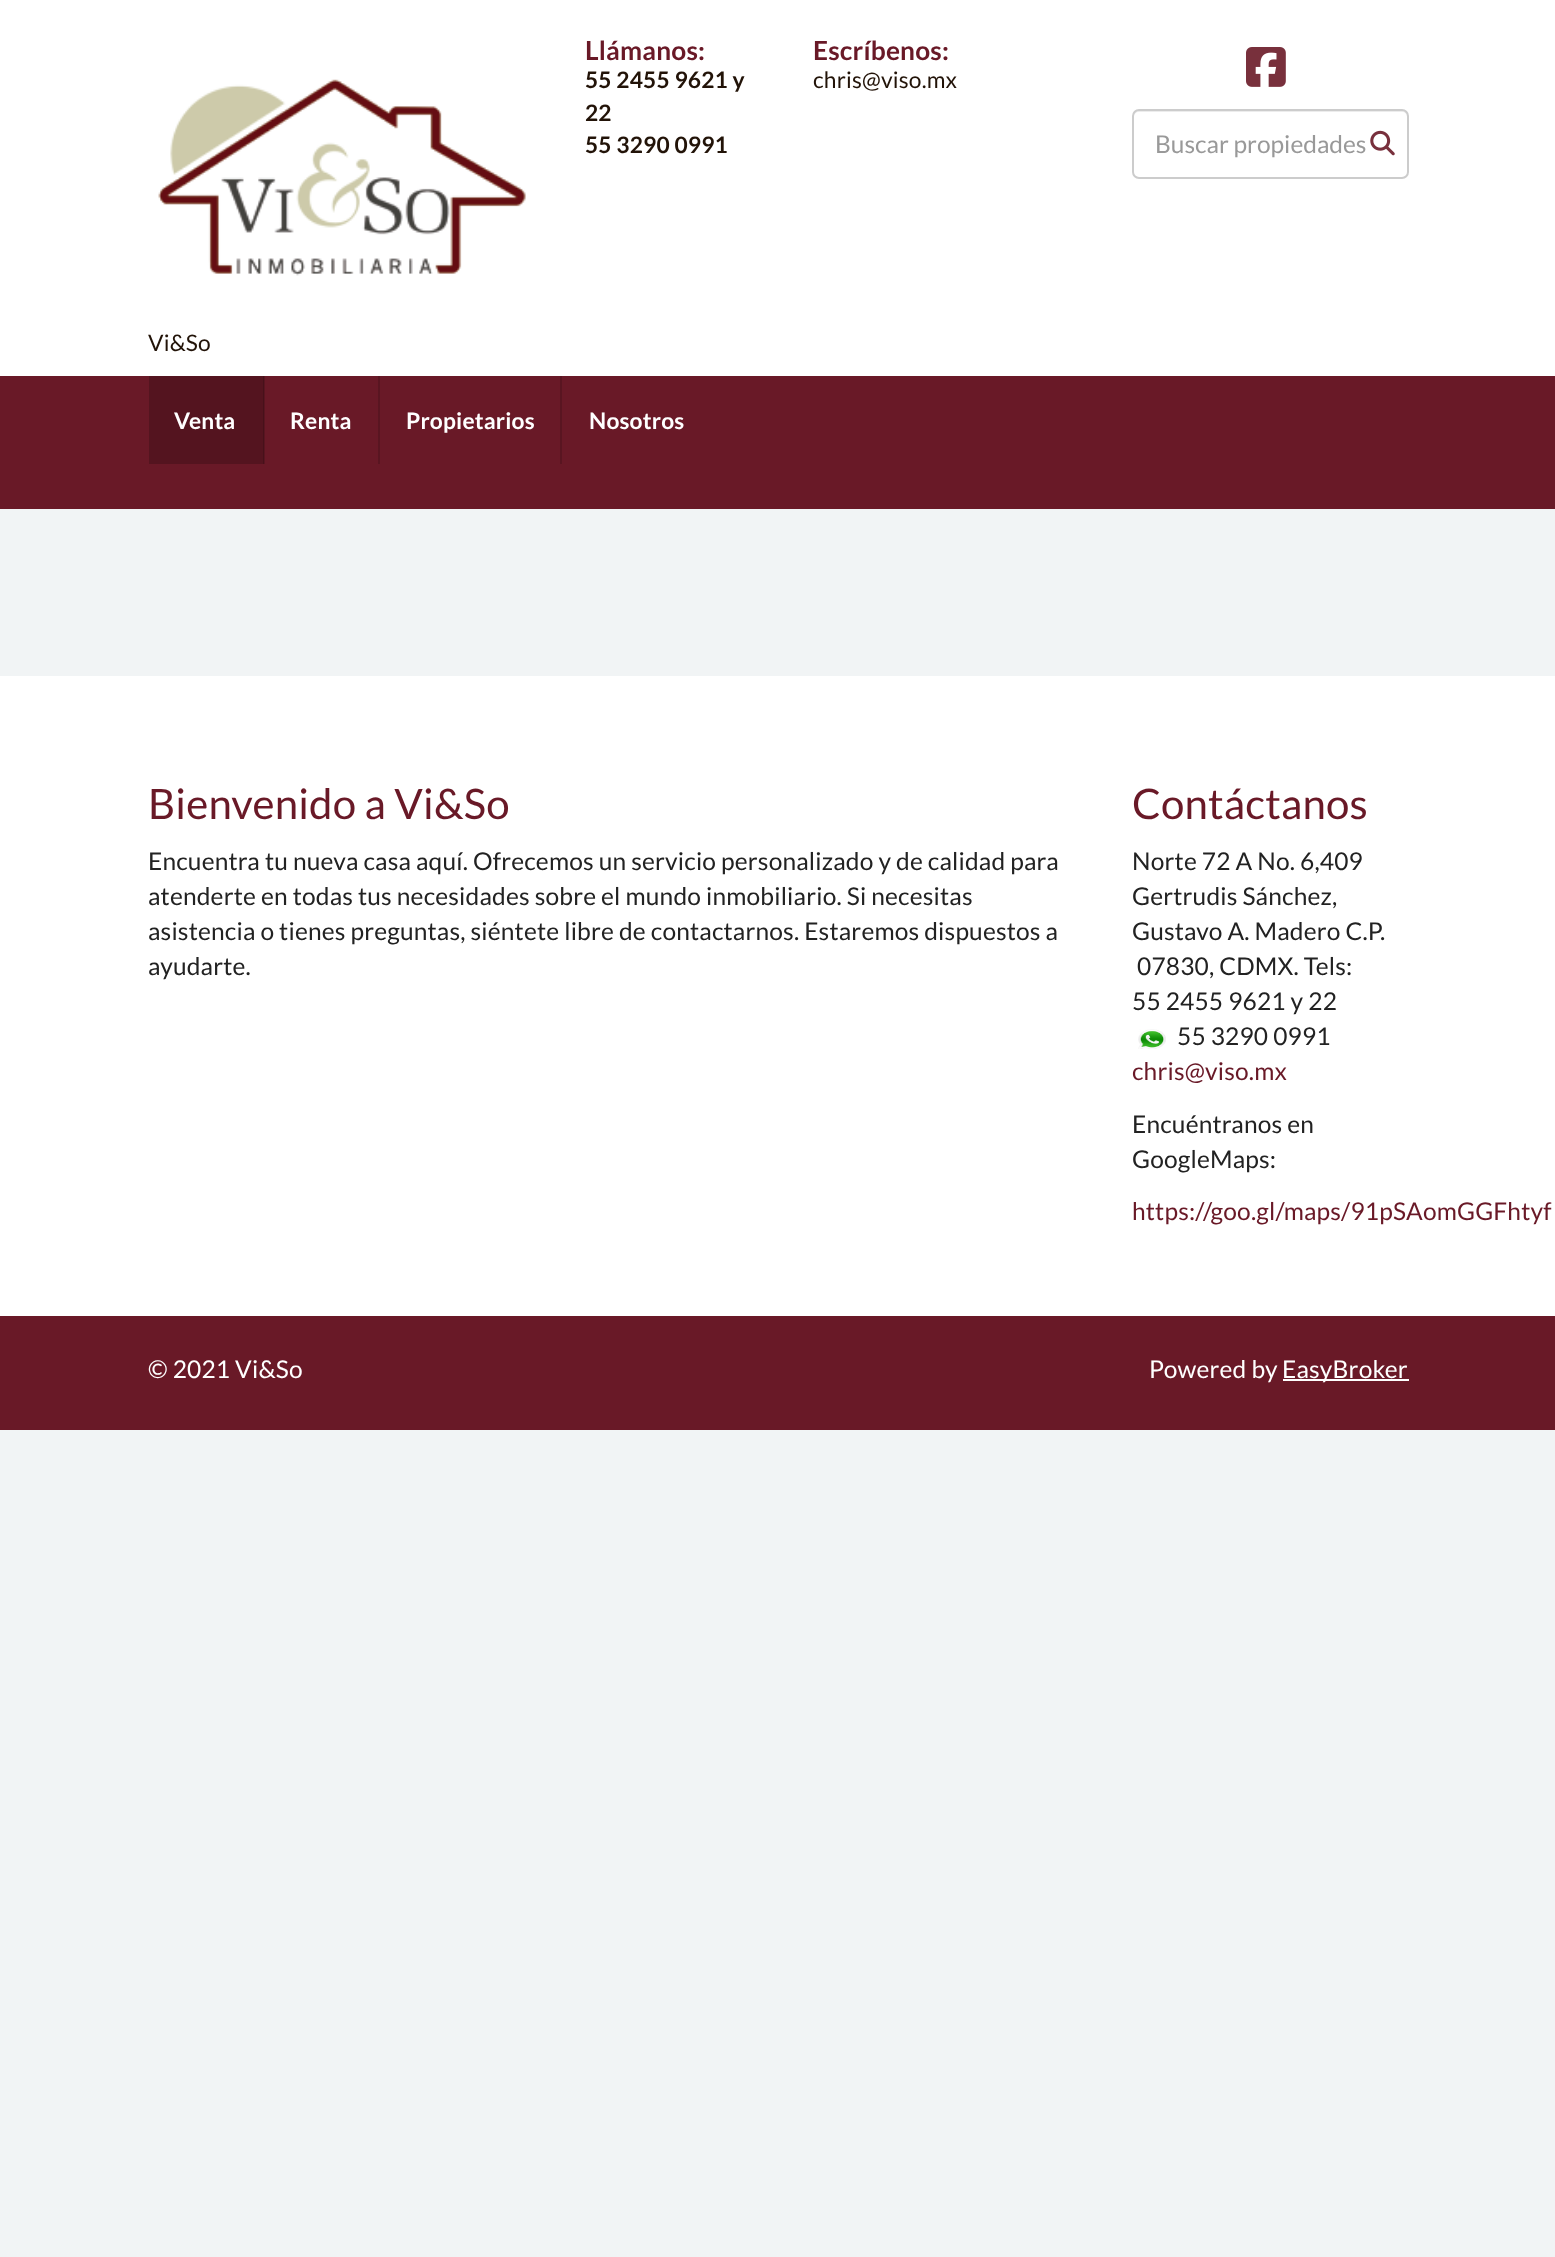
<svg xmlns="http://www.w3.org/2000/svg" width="1555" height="2257">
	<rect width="100%" height="100%" fill="#F1F4F5" />
	<rect x="0" y="0" width="1555" height="376" fill="#FFFFFF" />
	<text x="585" y="60" font-family="Lato" font-size="26.25" font-weight="700" letter-spacing="0.18" fill="#691927">Llámanos:</text>
	<g font-family="Lato" font-size="22.75" font-weight="700" letter-spacing="0.18" fill="#221308">
		<text x="585" y="88">55 2455 9621 y</text>
		<text x="585" y="121">22</text>
		<text x="585" y="153">55 3290 0991</text>
	</g>
	<text x="813" y="60" font-family="Lato" font-size="26.25" font-weight="700" letter-spacing="0.18" fill="#691927">Escríbenos:</text>
	<text x="813" y="88" font-family="Lato" font-size="22.75" letter-spacing="0.18" fill="#221308">chris@viso.mx</text>
	<image x="1246" y="47" width="40" height="40" href="assets/img1.png" />
	<path d="M1139 112H1402C1405 112 1407 114 1407 117V115C1407 112 1405 110 1402 110H1139C1136 110 1134 112 1134 115V117C1134 114 1136 112 1139 112Z" fill="#ECECEC" />
	<rect x="1133" y="110" width="275" height="68" rx="6" fill="none" stroke="#CCCCCC" stroke-width="2" />
	<text x="1155" y="153" font-family="Lato" font-size="24.5" fill="#999999">Buscar propiedades</text>
	<image x="1370" y="130" width="25" height="26" href="assets/img2.png" />
	<image x="158" y="79" width="368" height="197" href="assets/img3.png" />
	<text x="148" y="351" font-family="Lato" font-size="22.75" letter-spacing="0.18" fill="#221308">Vi&amp;So</text>
	<rect x="0" y="376" width="1555" height="133" fill="#691927" />
	<rect x="264" y="376" width="1" height="88" fill="#591521" />
	<rect x="149" y="376" width="114" height="88" fill="#54141F" />
	<rect x="263" y="376" width="1" height="88" fill="#47111A" />
	<text x="174" y="429" font-family="Lato" font-size="22.75" font-weight="700" letter-spacing="0.18" fill="#FFFFFF">Venta</text>
	<rect x="378" y="376" width="2" height="88" fill="#591521" />
	<text x="290" y="429" font-family="Lato" font-size="22.75" font-weight="700" letter-spacing="0.18" fill="#FFFFFF">Renta</text>
	<rect x="560" y="376" width="2" height="88" fill="#591521" />
	<g font-family="Lato" font-size="22.75" font-weight="700" letter-spacing="0.18" fill="#FFFFFF">
		<text x="406" y="429">Propietarios</text>
		<text x="589" y="429">Nosotros</text>
	</g>
	<rect x="0" y="676" width="1555" height="640" fill="#FFFFFF" />
	<text x="148" y="819" font-family="Lato" font-size="42" letter-spacing="0.18" fill="#691927">Bienvenido a Vi&amp;So</text>
	<g font-family="Lato" font-size="24.5" letter-spacing="0.18" fill="#222222">
		<text x="148" y="870">Encuentra tu nueva casa aquí. Ofrecemos un servicio personalizado y de calidad para</text>
		<text x="148" y="905">atenderte en todas tus necesidades sobre el mundo inmobiliario. Si necesitas</text>
		<text x="148" y="940">asistencia o tienes preguntas, siéntete libre de contactarnos. Estaremos dispuestos a</text>
		<text x="148" y="975">ayudarte.</text>
	</g>
	<text x="1132" y="819" font-family="Lato" font-size="42" letter-spacing="0.18" fill="#691927">Contáctanos</text>
	<g font-family="Lato" font-size="24.5" letter-spacing="0.18" fill="#222222">
		<text x="1132" y="870">Norte 72 A No. 6,409</text>
		<text x="1132" y="905">Gertrudis Sánchez,</text>
		<text x="1132" y="940">Gustavo A. Madero C.P.</text>
		<text x="1137" y="975">07830, CDMX. Tels:</text>
		<text x="1132" y="1010">55 2455 9621 y 22</text>
	</g>
	<image x="1138" y="1029" width="28" height="20" href="assets/img4.png" />
	<text x="1177" y="1045" font-family="Lato" font-size="24.5" letter-spacing="0.18" fill="#222222">55 3290 0991</text>
	<text x="1132" y="1080" font-family="Lato" font-size="24.5" letter-spacing="0.18" fill="#691927">chris@viso.mx</text>
	<g font-family="Lato" font-size="24.5" letter-spacing="0.18" fill="#222222">
		<text x="1132" y="1133">Encuéntranos en</text>
		<text x="1132" y="1168">GoogleMaps:</text>
	</g>
	<text x="1132" y="1220" font-family="Lato" font-size="24.5" letter-spacing="0.18" fill="#691927">https://goo.gl/maps/91pSAomGGFhtyf</text>
	<rect x="0" y="1316" width="1555" height="114" fill="#691927" />
	<g font-family="Lato" font-size="24.5" letter-spacing="0.18" fill="#FFFFFF">
		<text x="148" y="1378">© 2021 Vi&amp;So</text>
		<text x="1149" y="1378">Powered by</text>
	</g>
	<rect x="1283" y="1379" width="126" height="2" fill="#FFFFFF" />
	<text x="1282" y="1378" font-family="Lato" font-size="24.5" letter-spacing="0.18" fill="#FFFFFF">EasyBroker</text>
</svg>
